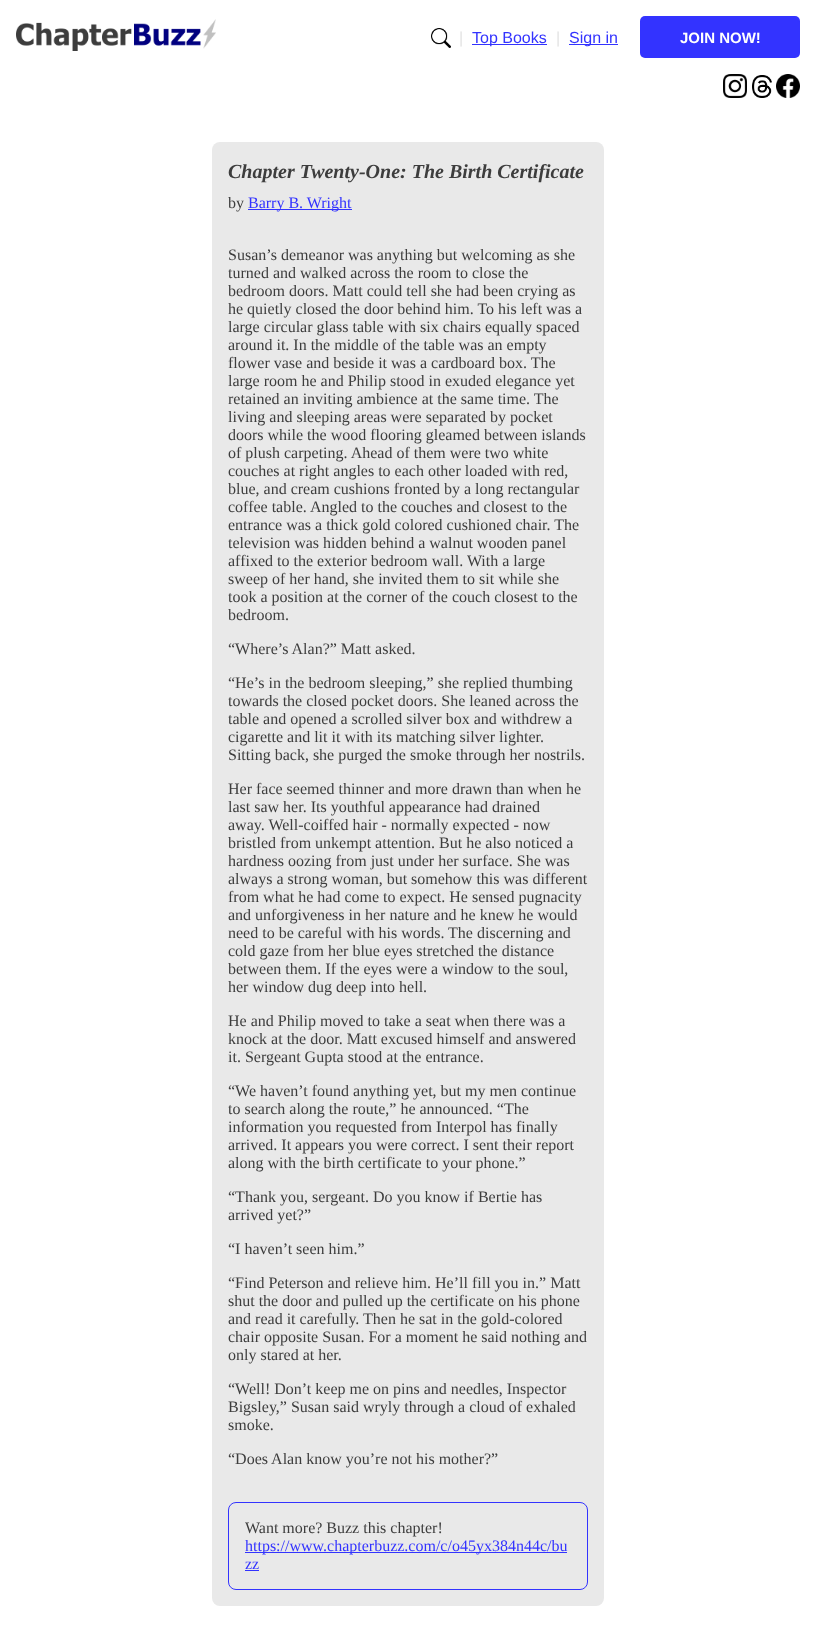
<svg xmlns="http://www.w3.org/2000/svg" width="816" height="1627">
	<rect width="100%" height="100%" fill="#FFFFFF" />
	<image x="16" y="19" width="200" height="32" href="assets/img1.png" />
	<image x="431" y="28" width="20" height="20" href="assets/img2.png" />
	<text x="459" y="43" font-family="Liberation Sans" font-size="16" fill="#E3E3E3">|</text>
	<rect x="472" y="44" width="75" height="1" fill="#3333FF" />
	<text x="472" y="43" font-family="Liberation Sans" font-size="16" fill="#3333FF">Top Books</text>
	<text x="556" y="43" font-family="Liberation Sans" font-size="16" fill="#E3E3E3">|</text>
	<rect x="569" y="44" width="49" height="1" fill="#3333FF" />
	<text x="569" y="43" font-family="Liberation Sans" font-size="16" fill="#3333FF">Sign in</text>
	<rect x="640" y="16" width="160" height="42" rx="5" fill="#3333FF" />
	<text x="680" y="43" font-family="Liberation Sans" font-size="15" font-weight="700" fill="#FFFFFF">JOIN NOW!</text>
	<image x="723" y="74" width="24" height="24" href="assets/img3.png" />
	<image x="752" y="75" width="20" height="23" href="assets/img4.png" />
	<image x="776" y="74" width="24" height="24" href="assets/img5.png" />
	<rect x="212" y="142" width="392" height="1464" rx="8" fill="#E9E9E9" />
	<text x="228" y="178" font-family="Liberation Serif" font-size="20" font-weight="700" font-style="italic" fill="#3D3D3D">Chapter Twenty-One: The Birth Certificate</text>
	<text x="228" y="208" font-family="Liberation Serif" font-size="16" fill="#3D3D3D">by</text>
	<rect x="248" y="209" width="104" height="1" fill="#3333FF" />
	<text x="248" y="208" font-family="Liberation Serif" font-size="16" fill="#3333FF">Barry B. Wright</text>
	<g font-family="Liberation Serif" font-size="16" fill="#3D3D3D">
		<text x="228" y="260">Susan’s demeanor was anything but welcoming as she</text>
		<text x="228" y="278">turned and walked across the room to close the</text>
		<text x="228" y="296">bedroom doors. Matt could tell she had been crying as</text>
		<text x="228" y="314">he quietly closed the door behind him. To his left was a</text>
		<text x="228" y="332">large circular glass table with six chairs equally spaced</text>
		<text x="228" y="350">around it. In the middle of the table was an empty</text>
		<text x="228" y="368">flower vase and beside it was a cardboard box. The</text>
		<text x="228" y="386">large room he and Philip stood in exuded elegance yet</text>
		<text x="228" y="404">retained an inviting ambience at the same time. The</text>
		<text x="228" y="422">living and sleeping areas were separated by pocket</text>
		<text x="228" y="440">doors while the wood flooring gleamed between islands</text>
		<text x="228" y="458">of plush carpeting. Ahead of them were two white</text>
		<text x="228" y="476">couches at right angles to each other loaded with red,</text>
		<text x="228" y="494">blue, and cream cushions fronted by a long rectangular</text>
		<text x="228" y="512">coffee table. Angled to the couches and closest to the</text>
		<text x="228" y="530">entrance was a thick gold colored cushioned chair. The</text>
		<text x="228" y="548">television was hidden behind a walnut wooden panel</text>
		<text x="228" y="566">affixed to the exterior bedroom wall. With a large</text>
		<text x="228" y="584">sweep of her hand, she invited them to sit while she</text>
		<text x="228" y="602">took a position at the corner of the couch closest to the</text>
		<text x="228" y="620">bedroom.</text>
		<text x="228" y="654">“Where’s Alan?” Matt asked.</text>
		<text x="228" y="688">“He’s in the bedroom sleeping,” she replied thumbing</text>
		<text x="228" y="706">towards the closed pocket doors. She leaned across the</text>
		<text x="228" y="724">table and opened a scrolled silver box and withdrew a</text>
		<text x="228" y="742">cigarette and lit it with its matching silver lighter.</text>
		<text x="228" y="760">Sitting back, she purged the smoke through her nostrils.</text>
		<text x="228" y="794">Her face seemed thinner and more drawn than when he</text>
		<text x="228" y="812">last saw her. Its youthful appearance had drained</text>
		<text x="228" y="830">away. Well-coiffed hair - normally expected - now</text>
		<text x="228" y="848">bristled from unkempt attention. But he also noticed a</text>
		<text x="228" y="866">hardness oozing from just under her surface. She was</text>
		<text x="228" y="884">always a strong woman, but somehow this was different</text>
		<text x="228" y="902">from what he had come to expect. He sensed pugnacity</text>
		<text x="228" y="920">and unforgiveness in her nature and he knew he would</text>
		<text x="228" y="938">need to be careful with his words. The discerning and</text>
		<text x="228" y="956">cold gaze from her blue eyes stretched the distance</text>
		<text x="228" y="974">between them. If the eyes were a window to the soul,</text>
		<text x="228" y="992">her window dug deep into hell.</text>
		<text x="228" y="1026">He and Philip moved to take a seat when there was a</text>
		<text x="228" y="1044">knock at the door. Matt excused himself and answered</text>
		<text x="228" y="1062">it. Sergeant Gupta stood at the entrance.</text>
		<text x="228" y="1096">“We haven’t found anything yet, but my men continue</text>
		<text x="228" y="1114">to search along the route,” he announced. “The</text>
		<text x="228" y="1132">information you requested from Interpol has finally</text>
		<text x="228" y="1150">arrived. It appears you were correct. I sent their report</text>
		<text x="228" y="1168">along with the birth certificate to your phone.”</text>
		<text x="228" y="1202">“Thank you, sergeant. Do you know if Bertie has</text>
		<text x="228" y="1220">arrived yet?”</text>
		<text x="228" y="1254">“I haven’t seen him.”</text>
		<text x="228" y="1288">“Find Peterson and relieve him. He’ll fill you in.” Matt</text>
		<text x="228" y="1306">shut the door and pulled up the certificate on his phone</text>
		<text x="228" y="1324">and read it carefully. Then he sat in the gold-colored</text>
		<text x="228" y="1342">chair opposite Susan. For a moment he said nothing and</text>
		<text x="228" y="1360">only stared at her.</text>
		<text x="228" y="1394">“Well! Don’t keep me on pins and needles, Inspector</text>
		<text x="228" y="1412">Bigsley,” Susan said wryly through a cloud of exhaled</text>
		<text x="228" y="1430">smoke.</text>
		<text x="228" y="1464">“Does Alan know you’re not his mother?”</text>
	</g>
	<rect x="228.5" y="1502.5" width="359" height="87" rx="7.5" fill="none" stroke="#3333FF" />
	<text x="245" y="1533" font-family="Liberation Serif" font-size="16" fill="#3D3D3D">Want more? Buzz this chapter!</text>
	<rect x="245" y="1552" width="322" height="1" fill="#3333FF" />
	<g font-family="Liberation Serif" font-size="16" fill="#3333FF">
		<text x="245" y="1551">https://www.chapterbuzz.com/c/o45yx384n44c/bu</text>
		<text x="245" y="1569">zz</text>
	</g>
	<rect x="245" y="1570" width="14" height="1" fill="#3333FF" />
</svg>
